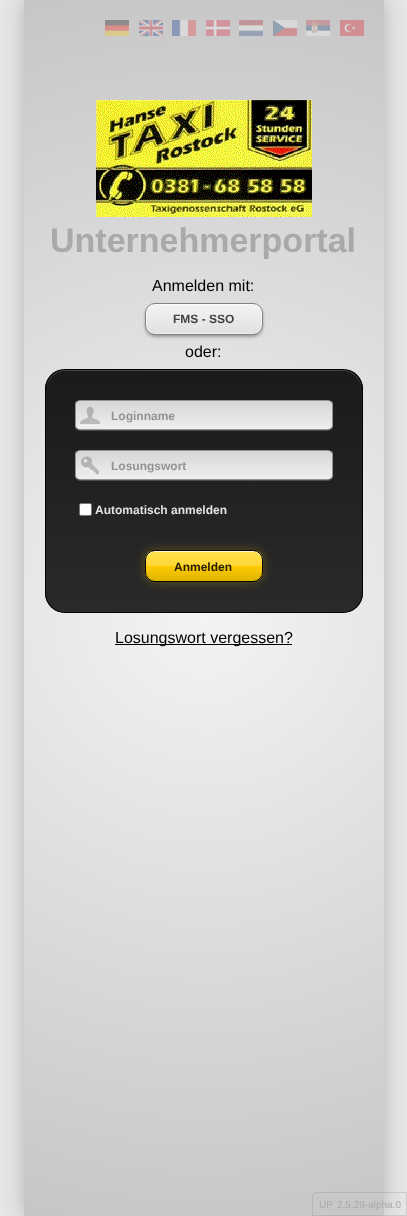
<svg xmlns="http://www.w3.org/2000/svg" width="407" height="1216">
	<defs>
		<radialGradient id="g1" gradientUnits="userSpaceOnUse" cx="204" cy="608" r="634"><stop offset="0" stop-color="#F4F4F4" /><stop offset="1" stop-color="#C6C6C6" /></radialGradient>
		<clipPath id="clip1"><rect x="145" y="303" width="118" height="32" rx="10" /></clipPath>
		<linearGradient id="g2" gradientUnits="userSpaceOnUse" x1="204" y1="304" x2="204" y2="334"><stop offset="0" stop-color="#F4F4F4" /><stop offset="1" stop-color="#E0E0E0" /></linearGradient>
		<clipPath id="clip2"><rect x="45" y="369" width="318" height="244" rx="20" /></clipPath>
		<linearGradient id="g3" gradientUnits="userSpaceOnUse" x1="204" y1="370" x2="204" y2="612"><stop offset="0" stop-color="#1A1A1A" /><stop offset="1" stop-color="#2A2A2A" /></linearGradient>
		<clipPath id="clip3"><rect x="75" y="400" width="258" height="30" rx="5" /></clipPath>
		<linearGradient id="g4" gradientUnits="userSpaceOnUse" x1="204" y1="401" x2="204" y2="429"><stop offset="0" stop-color="#D6D6D6" /><stop offset="1" stop-color="#EFEFEF" /></linearGradient>
		<clipPath id="clip4"><rect x="75" y="450" width="258" height="30" rx="5" /></clipPath>
		<linearGradient id="g5" gradientUnits="userSpaceOnUse" x1="204" y1="451" x2="204" y2="479"><stop offset="0" stop-color="#D6D6D6" /><stop offset="1" stop-color="#EFEFEF" /></linearGradient>
		<clipPath id="clip5"><rect x="145" y="550" width="118" height="32" rx="10" /></clipPath>
		<linearGradient id="g6" gradientUnits="userSpaceOnUse" x1="204" y1="551" x2="204" y2="581"><stop offset="0" stop-color="#FFE34F" /><stop offset="0.49" stop-color="#FFD533" /><stop offset="0.5" stop-color="#FFCB00" /><stop offset="1" stop-color="#DFB300" /></linearGradient>
	</defs>
	<rect width="100%" height="100%" fill="#E6E6E6" />
	<rect x="24" y="0" width="360" height="1216" fill="#B2B2B2" filter="blur(10px)" />
	<rect x="24" y="0" width="360" height="1216" fill="url(#g1)" />
	<image x="105" y="20" width="24" height="16" href="assets/img1.png" />
	<image x="139" y="20" width="24" height="16" href="assets/img2.png" />
	<image x="172" y="20" width="24" height="16" href="assets/img3.png" />
	<image x="206" y="20" width="24" height="16" href="assets/img4.png" />
	<image x="239" y="20" width="24" height="16" href="assets/img5.png" />
	<image x="273" y="20" width="24" height="16" href="assets/img6.png" />
	<image x="306" y="20" width="24" height="16" href="assets/img7.png" />
	<image x="340" y="20" width="24" height="16" href="assets/img8.png" />
	<image x="96" y="100" width="216" height="117" href="assets/img9.png" />
	<text x="50" y="252" font-family="Liberation Sans" font-size="34" font-weight="700" fill="#A9A9A9">Unternehmerportal</text>
	<text x="152" y="291" font-family="Liberation Sans" font-size="16" fill="#000000">Anmelden mit:</text>
	<rect x="145" y="305" width="118" height="32" rx="10" fill="#000000" fill-opacity="0.3" filter="blur(1.5px)" />
	<g clip-path="url(#clip1)">
		<rect x="145" y="304" width="118" height="30" fill="url(#g2)" />
	</g>
	<rect x="146.5" y="304.5" width="115" height="29" rx="8.5" fill="none" stroke="#FFFFFF" stroke-opacity="0.5" />
	<rect x="145.5" y="303.5" width="117" height="31" rx="9.5" fill="none" stroke="#848484" />
	<text x="173" y="323" font-family="Liberation Sans" font-size="12" font-weight="700" fill="#444444">FMS - SSO</text>
	<text x="185" y="357" font-family="Liberation Sans" font-size="16" fill="#000000">oder:</text>
	<g clip-path="url(#clip2)">
		<rect x="45" y="370" width="318" height="242" fill="url(#g3)" />
	</g>
	<path d="M65 371H343C353 371 362 380 362 390V389C362 379 353 370 343 370H65C55 370 46 379 46 389V390C46 380 55 371 65 371Z" fill="#484848" />
	<rect x="45.5" y="369.5" width="317" height="243" rx="19.5" fill="none" stroke="#000000" />
	<path d="M75 425C75 428 77 431 80 431H328C331 431 333 428 333 425C333 428 331 430 328 430H80C77 430 75 428 75 425Z" fill="#4B4B4B" />
	<g clip-path="url(#clip3)">
		<rect x="75" y="401" width="258" height="28" fill="url(#g4)" />
	</g>
	<rect x="75.5" y="400.5" width="257" height="29" rx="4.5" fill="none" stroke="#939393" />
	<image x="80" y="406" width="20" height="20" href="assets/img10.png" />
	<text x="111" y="420" font-family="Liberation Sans" font-size="12" font-weight="700" fill="#939393">Loginname</text>
	<path d="M75 475C75 478 77 481 80 481H328C331 481 333 478 333 475C333 478 331 480 328 480H80C77 480 75 478 75 475Z" fill="#4D4D4D" />
	<g clip-path="url(#clip4)">
		<rect x="75" y="451" width="258" height="28" fill="url(#g5)" />
	</g>
	<rect x="75.5" y="450.5" width="257" height="29" rx="4.5" fill="none" stroke="#939393" />
	<image x="81" y="456" width="18" height="20" href="assets/img11.png" />
	<text x="111" y="470" font-family="Liberation Sans" font-size="12" font-weight="700" fill="#939393">Losungswort</text>
	<rect x="79.5" y="503.5" width="12" height="12" rx="1.5" fill="#FFFFFF" stroke="#767676" />
	<text x="95" y="514" font-family="Liberation Sans" font-size="12" font-weight="700" fill="#E2E2E2">Automatisch anmelden</text>
	<rect x="145" y="550" width="118" height="32" rx="10" fill="#F9C700" fill-opacity="0.3" filter="blur(5px)" />
	<g clip-path="url(#clip5)">
		<rect x="145" y="551" width="118" height="30" fill="url(#g6)" />
	</g>
	<path d="M155 552H253C258 552 262 556 262 561C262 547 246 551 237 551H171C162 551 146 547 146 561C146 556 150 552 155 552Z" fill="#FFFFFF" fill-opacity="0.7" />
	<rect x="145.5" y="550.5" width="117" height="31" rx="9.5" fill="none" stroke="#000000" />
	<text x="174" y="571" font-family="Liberation Sans" font-size="12" font-weight="700" fill="#261F00">Anmelden</text>
	<rect x="115" y="644" width="177" height="1" fill="#000000" />
	<text x="115" y="643" font-family="Liberation Sans" font-size="16" fill="#000000">Losungswort vergessen?</text>
	<path d="M317 1192.5H406.5V1215.5H312.5V1197C312.5 1194.5 314.5 1192.5 317 1192.5Z" fill="none" stroke="#808080" stroke-opacity="0.25" />
	<g font-family="Liberation Sans" font-size="10" fill="#A9A9A9">
		<text x="319" y="1208">UP</text>
		<text x="337" y="1208">2.5.29-alpha.0</text>
	</g>
</svg>
